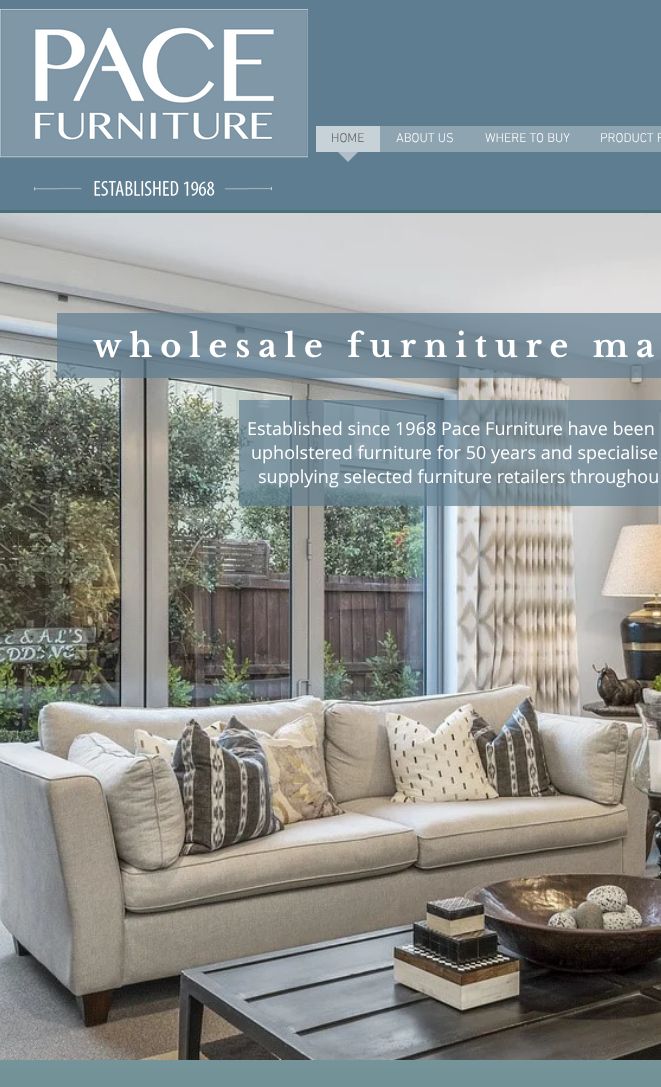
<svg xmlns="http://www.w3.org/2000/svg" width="661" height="1087">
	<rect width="100%" height="100%" fill="#477077" />
	<rect x="0" y="0" width="661" height="210" fill="#5F7D90" />
	<image x="0" y="9" width="308" height="187" href="assets/img1.png" />
	<rect x="380" y="126" width="281" height="26" fill="#8FA4B1" />
	<rect x="316" y="126" width="64" height="26" fill="#C7D2D8" />
	<text x="331" y="142" font-family="'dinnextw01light'" font-size="13" font-weight="300" fill="#605E5E">HOME</text>
	<path d="M338 152H358L348 162Z" fill="#AFBEC8" />
	<g font-family="'dinnextw01light'" font-size="13" font-weight="300" fill="#FFFFFF">
		<text x="396" y="142">ABOUT US</text>
		<text x="485" y="142">WHERE TO BUY</text>
		<text x="600" y="142">PRODUCT R</text>
	</g>
	<image x="0" y="213" width="661" height="847" href="assets/img2.png" />
	<rect x="57" y="313" width="604" height="65" fill="#5F7D90" fill-opacity="0.72" />
	<text x="93" y="357" font-family="Libre Baskerville" font-size="32" font-weight="700" letter-spacing="8" fill="#FFFFFF">wholesale furniture ma</text>
	<rect x="239" y="400" width="422" height="106" fill="#5F7D90" fill-opacity="0.7" />
	<g font-family="Open Sans" font-size="18" fill="#FFFFFF">
		<text x="247" y="435">Established since 1968 Pace Furniture have been</text>
		<text x="251" y="459">upholstered furniture for 50 years and specialise</text>
		<text x="258" y="483">supplying selected furniture retailers throughou</text>
	</g>
	<image x="0" y="1060" width="661" height="27" href="assets/img3.png" />
</svg>
